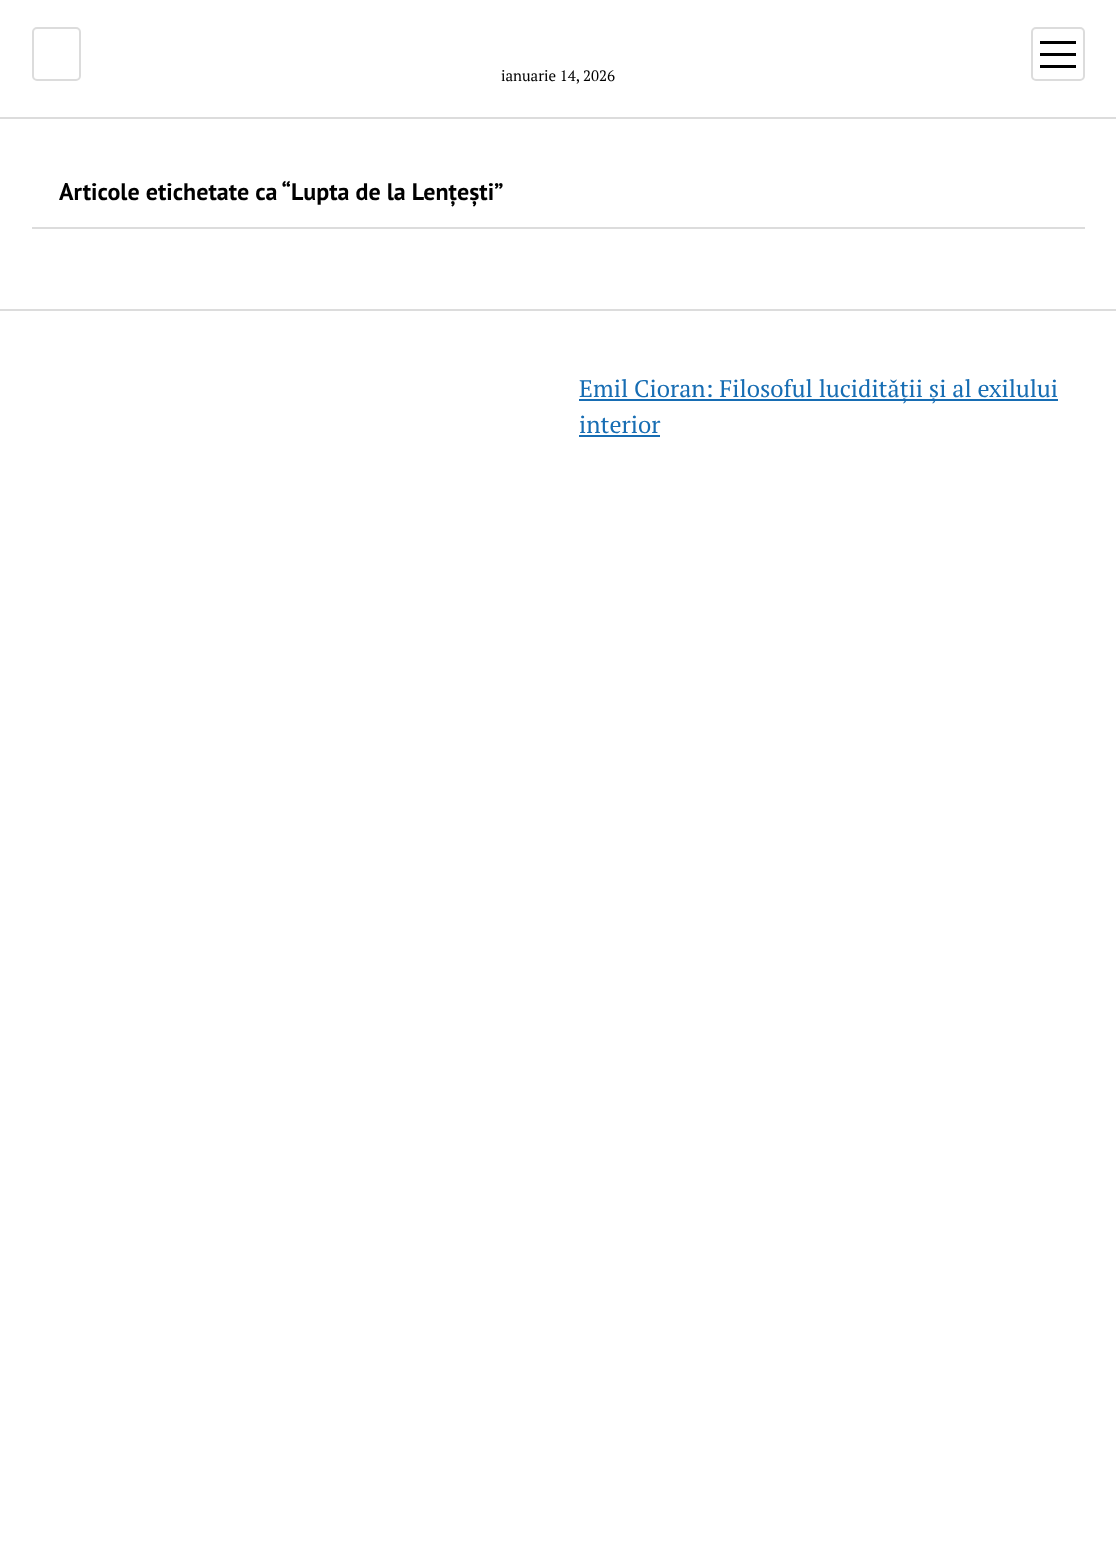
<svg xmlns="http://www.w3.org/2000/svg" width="1116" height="1555">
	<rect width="100%" height="100%" fill="#FFFFFF" />
	<rect x="0" y="117" width="1116" height="2" fill="#DCDCDC" />
	<rect x="33" y="28" width="47" height="52" rx="4" fill="none" stroke="#DCDCDC" stroke-width="2" />
	<text x="501" y="81" font-family="PT Serif" font-size="15" fill="#000000">ianuarie 14, 2026</text>
	<rect x="1032" y="28" width="52" height="52" rx="4" fill="none" stroke="#DCDCDC" stroke-width="2" />
	<rect x="1040" y="41" width="36" height="3" fill="#000000" />
	<rect x="1040" y="53" width="36" height="3" fill="#000000" />
	<rect x="1040" y="65" width="36" height="3" fill="#000000" />
	<rect x="32" y="227" width="1053" height="2" fill="#DCDCDC" />
	<text x="59" y="200" font-family="PT Sans" font-size="24" font-weight="700" fill="#000000">Articole etichetate ca “Lupta de la Lențești”</text>
	<rect x="0" y="309" width="1116" height="2" fill="#DCDCDC" />
	<rect x="579" y="399" width="479" height="2" fill="#176DB3" />
	<g font-family="PT Serif" font-size="24" fill="#176DB3">
		<text x="579" y="397">Emil Cioran: Filosoful lucidității și al exilului</text>
		<text x="579" y="433">interior</text>
	</g>
	<rect x="579" y="435" width="81" height="2" fill="#176DB3" />
</svg>
